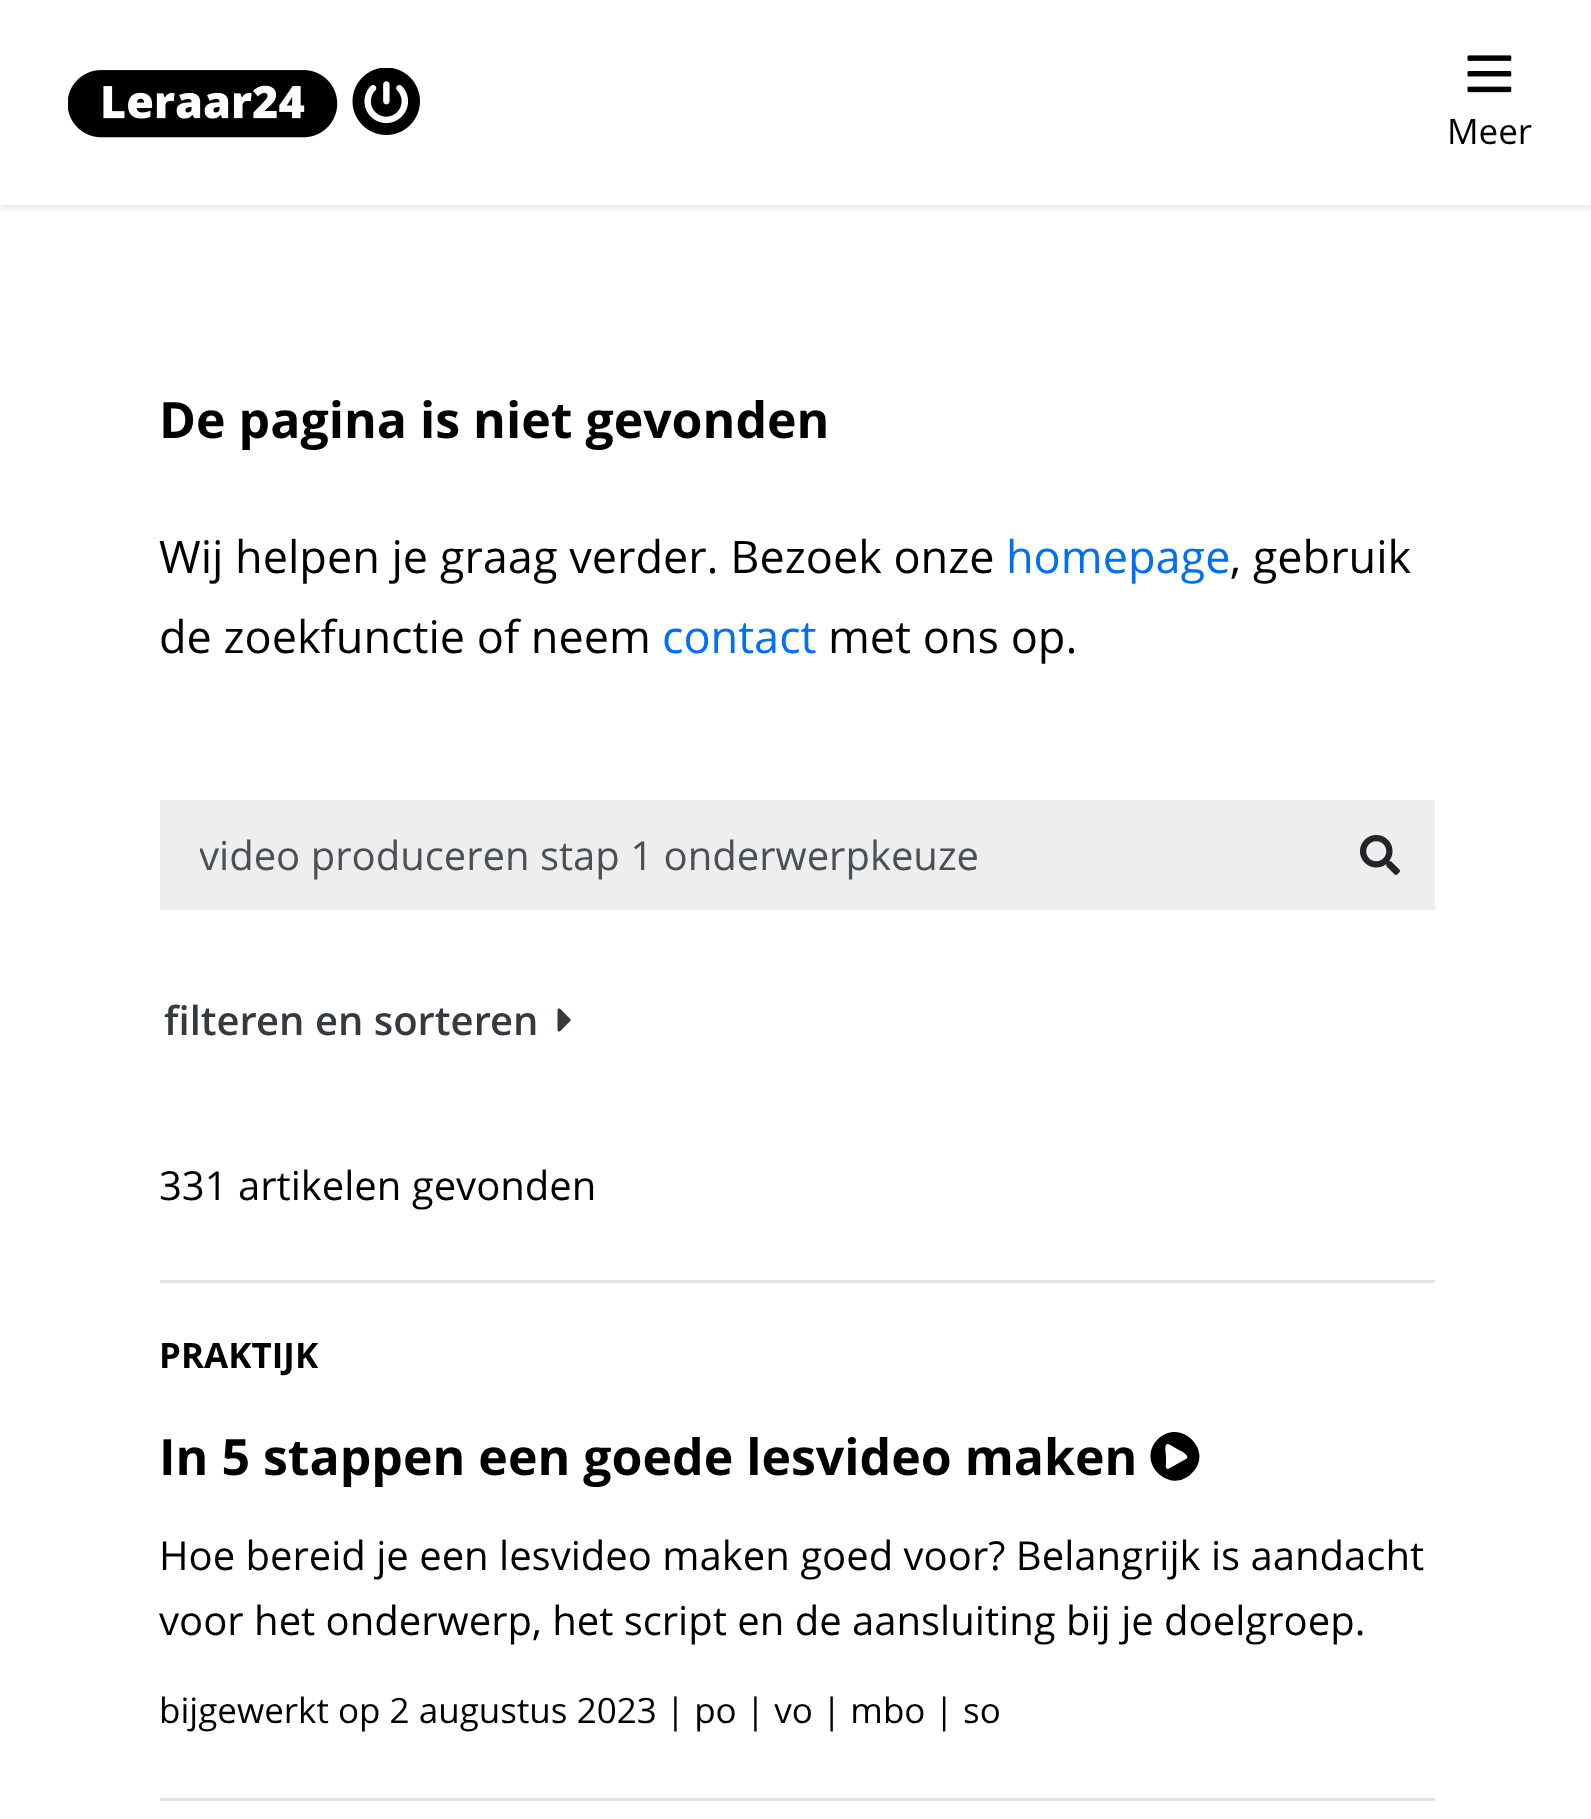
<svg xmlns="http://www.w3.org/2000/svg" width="1591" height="1819">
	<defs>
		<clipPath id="clip1"><rect x="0" y="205" width="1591" height="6" /></clipPath>
		<clipPath id="clip2"><rect x="200" y="828" width="1048" height="55" /></clipPath>
	</defs>
	<rect width="100%" height="100%" fill="#FFFFFF" />
	<g clip-path="url(#clip1)">
		<rect x="0" y="3" width="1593" height="205" fill="#000000" fill-opacity="0.1" filter="blur(4px)" />
	</g>
	<image x="68" y="68" width="352" height="70" href="assets/img1.png" />
	<image x="1467" y="55" width="45" height="38" href="assets/img2.png" />
	<text x="1447" y="144" font-family="Open Sans" font-size="35" fill="#000000">Meer</text>
	<text x="159" y="438" font-family="Open Sans" font-size="50" font-weight="700" fill="#000000">De pagina is niet gevonden</text>
	<text x="159" y="573" font-family="Open Sans" font-size="45" fill="#000000">Wij helpen je graag verder. Bezoek onze</text>
	<text x="1006" y="573" font-family="Open Sans" font-size="45" fill="#006FF8">homepage</text>
	<g font-family="Open Sans" font-size="45" fill="#000000">
		<text x="1230" y="573">, gebruik</text>
		<text x="159" y="653">de zoekfunctie of neem</text>
	</g>
	<text x="662" y="653" font-family="Open Sans" font-size="45" fill="#006FF8">contact</text>
	<text x="828" y="653" font-family="Open Sans" font-size="45" fill="#000000">met ons op.</text>
	<rect x="160" y="800" width="1275" height="110" fill="#EEEEEE" />
	<g clip-path="url(#clip2)">
		<text x="199" y="870" font-family="Open Sans" font-size="40" fill="#495057">video produceren stap 1 onderwerpkeuze</text>
	</g>
	<image x="1360" y="835" width="40" height="40" href="assets/img3.png" />
	<text x="164" y="1035" font-family="Open Sans" font-size="40" font-weight="600" fill="#343A40">filteren en sorteren</text>
	<image x="557" y="1008" width="14" height="24" href="assets/img4.png" />
	<text x="159" y="1200" font-family="Open Sans" font-size="40" fill="#000000">331 artikelen gevonden</text>
	<rect x="160" y="1280" width="1275" height="3" fill="#E2E2E2" />
	<text x="159" y="1368" font-family="Open Sans" font-size="35" font-weight="700" fill="#000000">PRAKTIJK</text>
	<text x="159" y="1475" font-family="Open Sans" font-size="50" font-weight="700" fill="#000000">In 5 stappen een goede lesvideo maken</text>
	<path d="M1158 1439C1180 1417 1215 1451 1192 1473C1170 1496 1135 1462 1158 1439ZM1186 1459C1191 1456 1181 1451 1181 1451C1178 1450 1169 1443 1167 1444C1164 1445 1166 1454 1166 1456V1463C1166 1465 1165 1469 1168 1469Z" fill="#000000" />
	<g font-family="Open Sans" font-size="40" fill="#000000">
		<text x="159" y="1570">Hoe bereid je een lesvideo maken goed voor? Belangrijk is aandacht</text>
		<text x="159" y="1635">voor het onderwerp, het script en de aansluiting bij je doelgroep.</text>
	</g>
	<text x="159" y="1723" font-family="Open Sans" font-size="35" fill="#000000">bijgewerkt op 2 augustus 2023 | po | vo | mbo | so</text>
	<rect x="160" y="1798" width="1275" height="3" fill="#E2E2E2" />
</svg>
